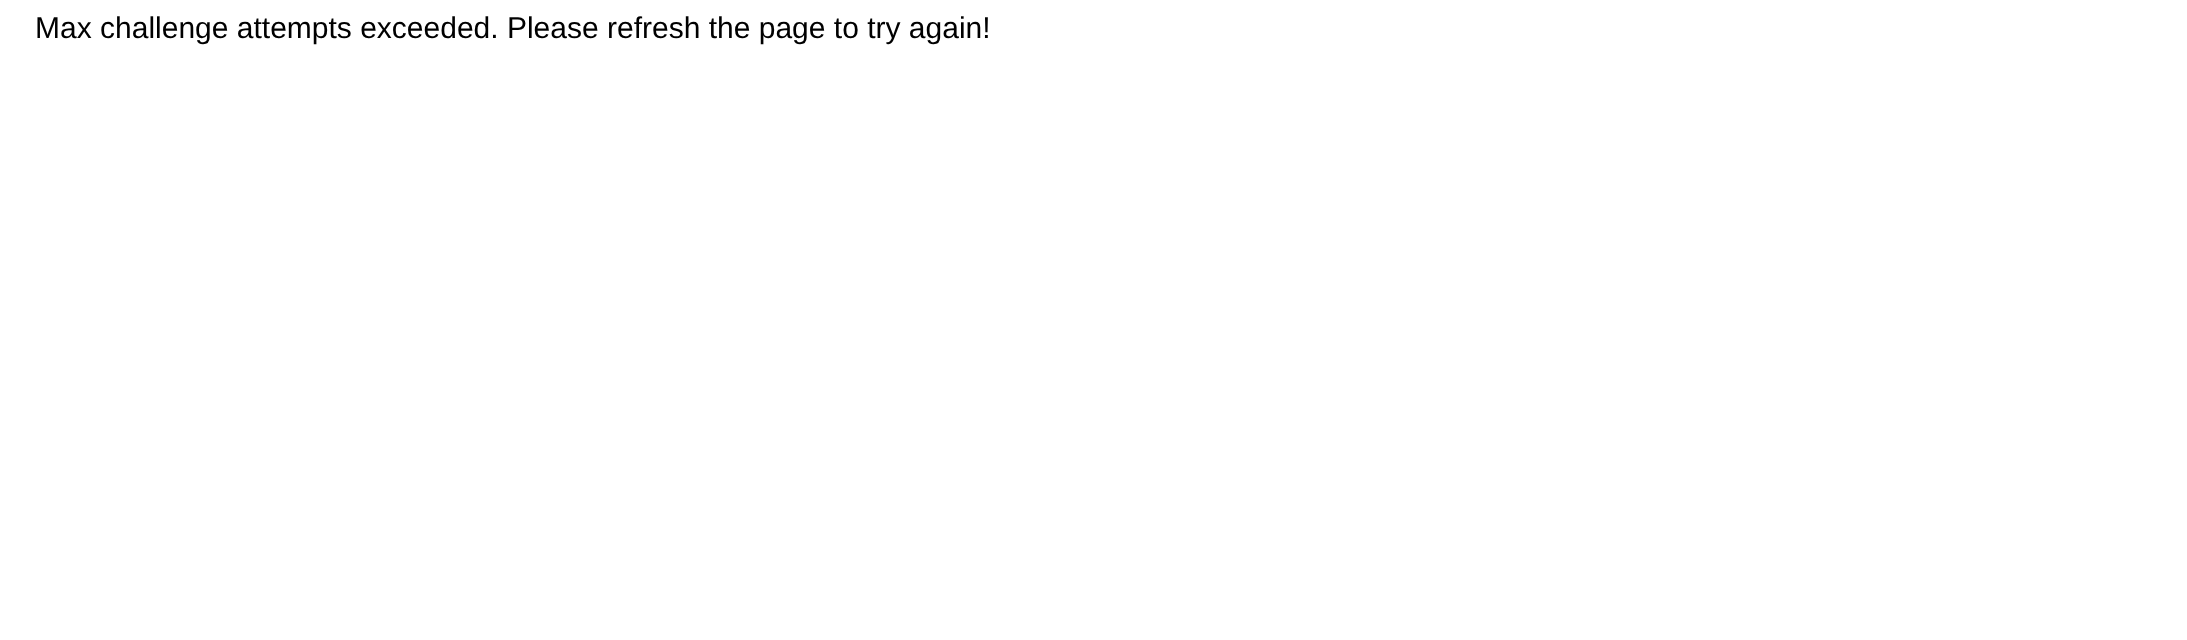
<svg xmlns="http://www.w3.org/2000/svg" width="2187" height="640">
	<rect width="100%" height="100%" fill="#FFFFFF" />
	<text x="35" y="38" font-family="Liberation Sans" font-size="30" fill="#000000">Max challenge attempts exceeded. Please refresh the page to try again!</text>
</svg>
